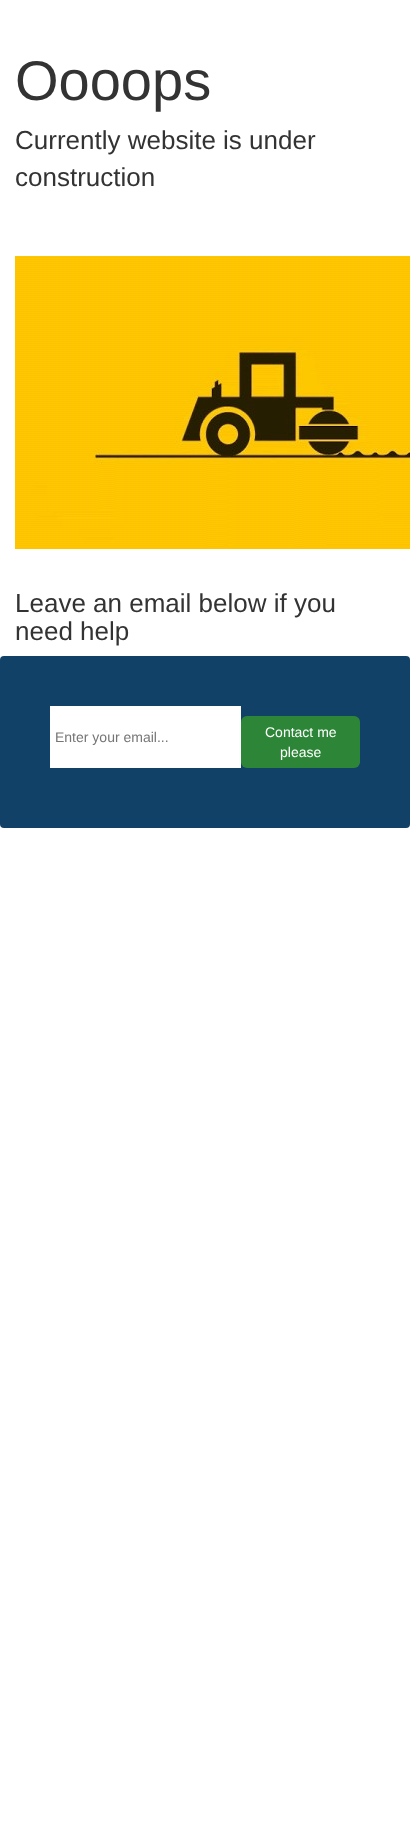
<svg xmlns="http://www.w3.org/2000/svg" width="410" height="1842">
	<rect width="100%" height="100%" fill="#FFFFFF" />
	<text x="15" y="100" font-family="Liberation Sans" font-size="56" fill="#333333">Oooops</text>
	<g font-family="Liberation Sans" font-size="26" fill="#333333">
		<text x="15" y="149">Currently website is under</text>
		<text x="15" y="186">construction</text>
	</g>
	<image x="15" y="256" width="395" height="293" href="assets/img1.png" />
	<g font-family="Liberation Sans" font-size="26" fill="#333333">
		<text x="15" y="612">Leave an email below if you</text>
		<text x="15" y="640">need help</text>
	</g>
	<rect x="0" y="656" width="410" height="172" rx="4" fill="#124167" />
	<rect x="50" y="706" width="191" height="62" fill="#FFFFFF" />
	<text x="55" y="742" font-family="Liberation Sans" font-size="14" fill="#757575">Enter your email...</text>
	<rect x="241" y="716" width="119" height="52" rx="6" fill="#2D8638" />
	<g font-family="Liberation Sans" font-size="14" fill="#FFFFFF">
		<text x="265" y="737">Contact me</text>
		<text x="280" y="757">please</text>
	</g>
</svg>
